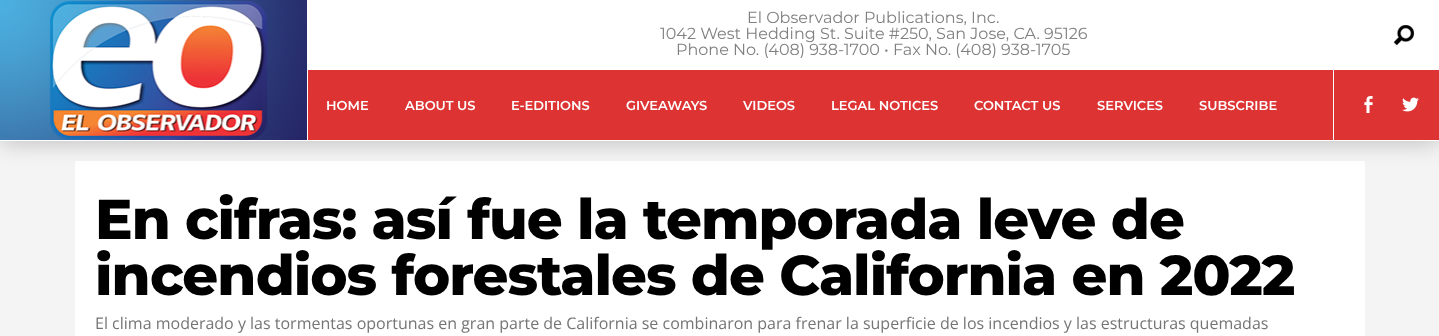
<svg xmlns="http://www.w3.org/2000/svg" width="1439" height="336">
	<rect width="100%" height="100%" fill="#F4F4F4" />
	<rect x="75" y="161" width="1290" height="175" fill="#FFFFFF" />
	<rect x="0" y="0" width="1439" height="141" fill="#000000" fill-opacity="0.25" filter="blur(12px)" />
	<rect x="308" y="70" width="1131" height="70" fill="#DD3333" />
	<rect x="0" y="140" width="1439" height="1" fill="#FFFFFF" />
	<rect x="307" y="0" width="1" height="140" fill="#FFFFFF" />
	<image x="0" y="0" width="307" height="140" href="assets/img1.png" />
	<rect x="308" y="0" width="1131" height="70" fill="#FFFFFF" />
	<g font-family="Montserrat" font-size="16" fill="#808080">
		<text x="747" y="23">El Observador Publications, Inc.</text>
		<text x="660" y="39">1042 West Hedding St. Suite #250, San Jose, CA. 95126</text>
		<text x="676" y="55">Phone No. (408) 938-1700 • Fax No. (408) 938-1705</text>
	</g>
	<image x="1394" y="25" width="20" height="20" href="assets/img2.png" />
	<g font-family="Montserrat" font-size="13" font-weight="600" fill="#FFFFFF">
		<text x="326" y="110">HOME</text>
		<text x="405" y="110">ABOUT US</text>
		<text x="511" y="110">E-EDITIONS</text>
		<text x="626" y="110">GIVEAWAYS</text>
		<text x="743" y="110">VIDEOS</text>
		<text x="831" y="110">LEGAL NOTICES</text>
		<text x="974" y="110">CONTACT US</text>
		<text x="1097" y="110">SERVICES</text>
		<text x="1199" y="110">SUBSCRIBE</text>
	</g>
	<rect x="1333" y="70" width="1" height="70" fill="#FFFFFF" />
	<image x="1364" y="96" width="9" height="17" href="assets/img3.png" />
	<image x="1402" y="97" width="17" height="15" href="assets/img4.png" />
	<g font-family="Montserrat" font-size="56" font-weight="800" letter-spacing="-1" fill="#000000">
		<text x="95" y="239">En cifras: así fue la temporada leve de</text>
		<text x="95" y="295">incendios forestales de California en 2022</text>
	</g>
	<text x="95" y="329" font-family="Open Sans" font-size="16" fill="#757575">El clima moderado y las tormentas oportunas en gran parte de California se combinaron para frenar la superficie de los incendios y las estructuras quemadas</text>
</svg>
